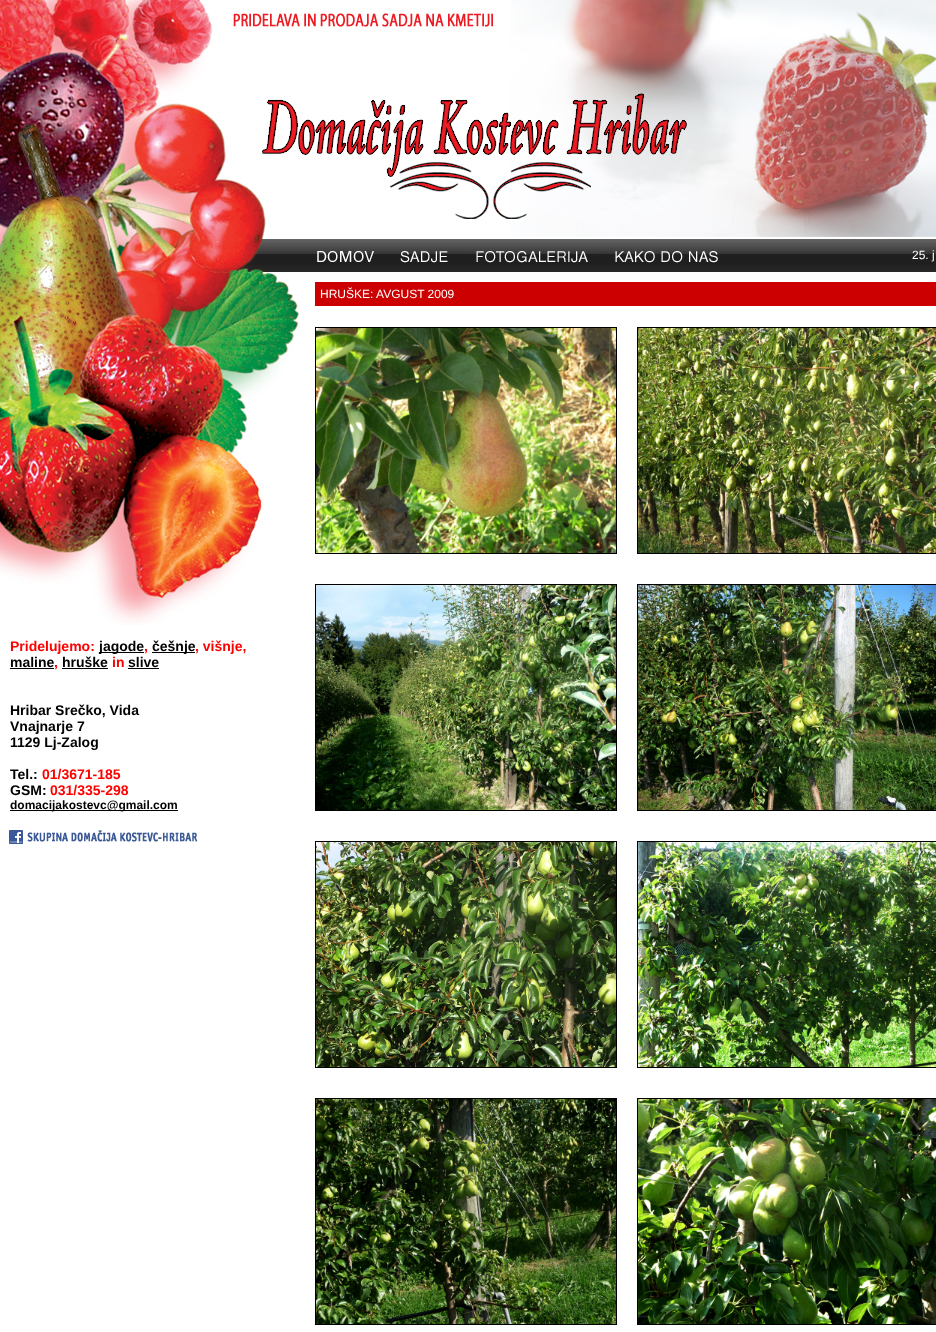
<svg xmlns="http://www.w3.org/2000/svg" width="936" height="1332">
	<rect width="100%" height="100%" fill="#FFFFFF" />
	<image x="0" y="0" width="936" height="238" href="assets/img1.png" />
	<image x="305" y="239" width="631" height="33" href="assets/img2.png" />
	<image x="317" y="251" width="57" height="11" href="assets/img3.png" />
	<image x="400" y="251" width="65" height="12" href="assets/img4.png" />
	<image x="476" y="248" width="124" height="15" href="assets/img5.png" />
	<image x="615" y="249" width="103" height="14" href="assets/img6.png" />
	<text x="912" y="259" font-family="Liberation Sans" font-size="12" fill="#FFFFFF">25. j</text>
	<rect x="315" y="282" width="621" height="24" fill="#CC0000" />
	<text x="320" y="298" font-family="Liberation Sans" font-size="12" fill="#FFFFFF">HRUŠKE: AVGUST 2009</text>
	<rect x="315.5" y="327.5" width="301" height="226" fill="none" stroke="#000000" />
	<image x="316" y="328" width="300" height="225" href="assets/img7.png" />
	<rect x="637.5" y="327.5" width="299" height="226" fill="none" stroke="#000000" />
	<image x="638" y="328" width="298" height="225" href="assets/img8.png" />
	<rect x="315.5" y="584.5" width="301" height="226" fill="none" stroke="#000000" />
	<image x="316" y="585" width="300" height="225" href="assets/img9.png" />
	<rect x="637.5" y="584.5" width="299" height="226" fill="none" stroke="#000000" />
	<image x="638" y="585" width="298" height="225" href="assets/img10.png" />
	<rect x="315.5" y="841.5" width="301" height="226" fill="none" stroke="#000000" />
	<image x="316" y="842" width="300" height="225" href="assets/img11.png" />
	<rect x="637.5" y="841.5" width="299" height="226" fill="none" stroke="#000000" />
	<image x="638" y="842" width="298" height="225" href="assets/img12.png" />
	<rect x="315.5" y="1098.5" width="301" height="226" fill="none" stroke="#000000" />
	<image x="316" y="1099" width="300" height="225" href="assets/img13.png" />
	<rect x="637.5" y="1098.5" width="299" height="226" fill="none" stroke="#000000" />
	<image x="638" y="1099" width="298" height="225" href="assets/img14.png" />
	<image x="0" y="238" width="305" height="387" href="assets/img15.png" />
	<text x="10" y="651" font-family="Liberation Sans" font-size="14" font-weight="700" fill="#FF0000">Pridelujemo:</text>
	<rect x="99" y="652" width="45" height="1" fill="#000000" />
	<text x="99" y="651" font-family="Liberation Sans" font-size="14" font-weight="700" fill="#000000">jagode</text>
	<text x="144" y="651" font-family="Liberation Sans" font-size="14" font-weight="700" fill="#FF0000">,</text>
	<rect x="152" y="652" width="43" height="1" fill="#000000" />
	<text x="152" y="651" font-family="Liberation Sans" font-size="14" font-weight="700" fill="#000000">češnje</text>
	<text x="195" y="651" font-family="Liberation Sans" font-size="14" font-weight="700" fill="#FF0000">, višnje,</text>
	<text x="10" y="667" font-family="Liberation Sans" font-size="14" font-weight="700" fill="#000000">maline</text>
	<text x="54" y="667" font-family="Liberation Sans" font-size="14" font-weight="700" fill="#FF0000">,</text>
	<rect x="10" y="668" width="44" height="1" fill="#000000" />
	<rect x="62" y="668" width="46" height="1" fill="#000000" />
	<text x="62" y="667" font-family="Liberation Sans" font-size="14" font-weight="700" fill="#000000">hruške</text>
	<text x="112" y="667" font-family="Liberation Sans" font-size="14" font-weight="700" fill="#FF0000">in</text>
	<text x="128" y="667" font-family="Liberation Sans" font-size="14" font-weight="700" fill="#000000">slive</text>
	<rect x="128" y="668" width="31" height="1" fill="#000000" />
	<g font-family="Liberation Sans" font-size="14" font-weight="700" fill="#000000">
		<text x="10" y="715">Hribar Srečko, Vida</text>
		<text x="10" y="731">Vnajnarje 7</text>
		<text x="10" y="747">1129 Lj-Zalog</text>
		<text x="10" y="779">Tel.:</text>
	</g>
	<text x="42" y="779" font-family="Liberation Sans" font-size="14" font-weight="700" fill="#FF0000">01/3671-185</text>
	<text x="10" y="795" font-family="Liberation Sans" font-size="14" font-weight="700" fill="#000000">GSM:</text>
	<text x="50" y="795" font-family="Liberation Sans" font-size="14" font-weight="700" fill="#FF0000">031/335-298</text>
	<rect x="10" y="810" width="168" height="1" fill="#000000" />
	<text x="10" y="809" font-family="Liberation Sans" font-size="12" font-weight="700" fill="#000000">domacijakostevc@gmail.com</text>
	<image x="9" y="830" width="189" height="14" href="assets/img16.png" />
</svg>
